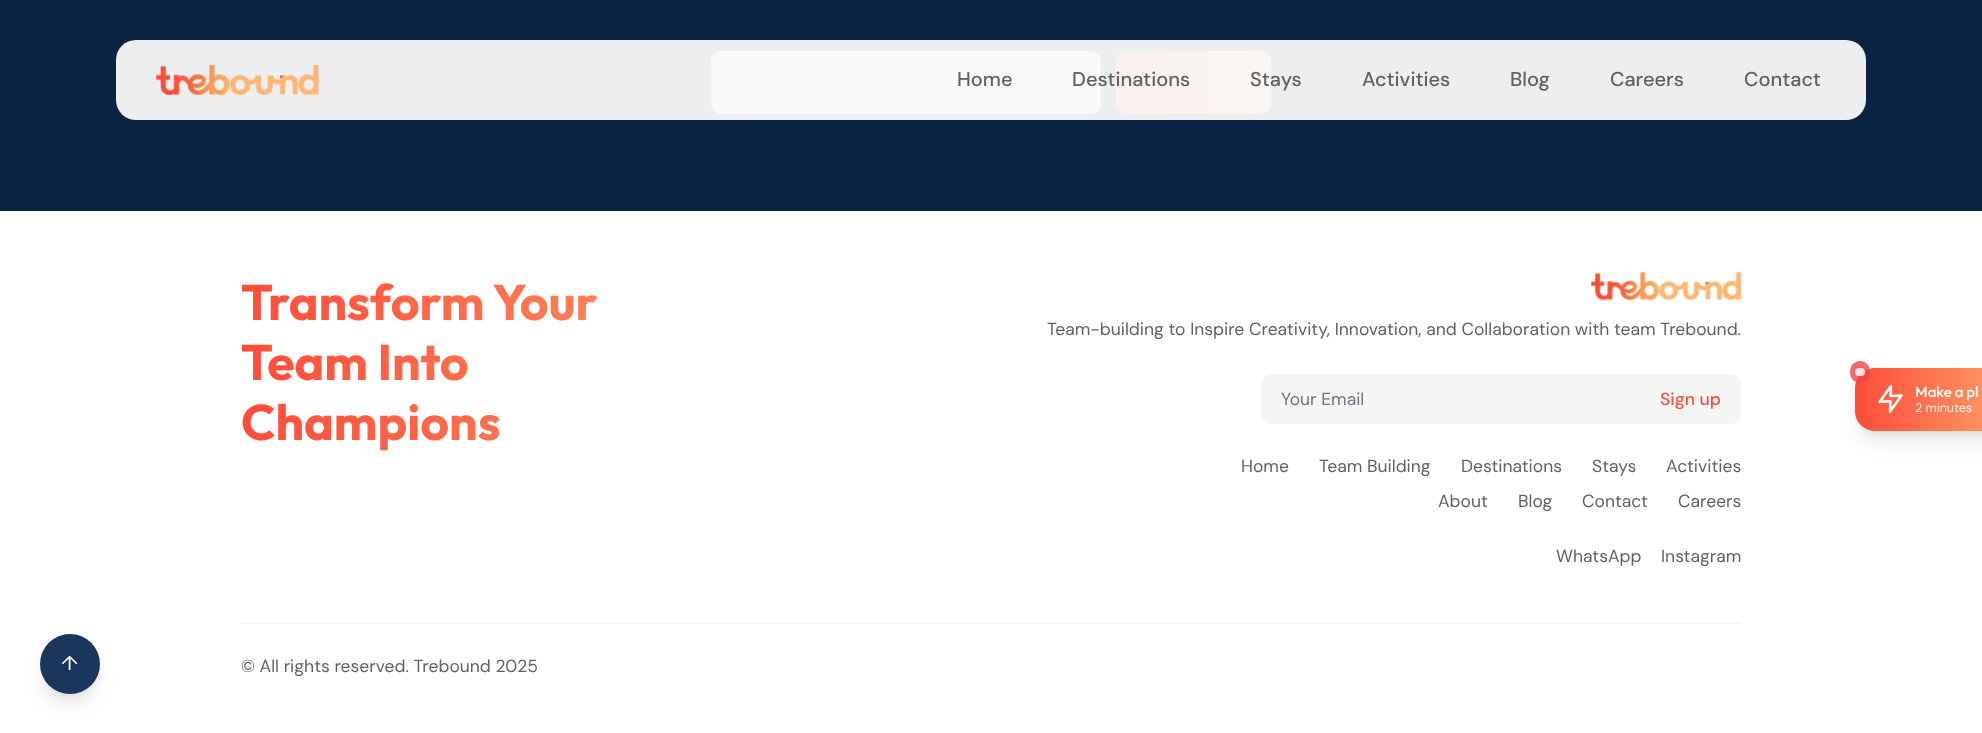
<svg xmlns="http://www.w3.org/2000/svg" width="1982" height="733">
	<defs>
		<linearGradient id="g1" gradientUnits="userSpaceOnUse" x1="241" y1="362" x2="971" y2="362"><stop offset="0" stop-color="#FF4C39" /><stop offset="1" stop-color="#FFB573" /></linearGradient>
		<linearGradient id="g2" gradientUnits="userSpaceOnUse" x1="1116" y1="83" x2="1271" y2="83"><stop offset="0" stop-color="#FF4C39" /><stop offset="1" stop-color="#FFB573" /></linearGradient>
		<linearGradient id="g3" gradientUnits="userSpaceOnUse" x1="1855" y1="399" x2="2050" y2="399"><stop offset="0" stop-color="#FF4C39" /><stop offset="1" stop-color="#FFB573" /></linearGradient>
	</defs>
	<rect width="100%" height="100%" fill="#0A2342" />
	<rect x="711.5" y="51.5" width="389" height="62" rx="9.5" fill="#FFFFFF" stroke="#D1D5DB" />
	<rect x="1116" y="51" width="155" height="63" rx="10" fill="url(#g2)" />
	<rect x="116" y="40" width="1750" height="80" rx="20" fill="#FAFAFA" fill-opacity="0.95" />
	<image x="156" y="65" width="163" height="30" href="assets/img1.png" />
	<g font-family="DM Sans" font-size="20" font-weight="500" fill="#616161">
		<text x="957" y="86">Home</text>
		<text x="1072" y="86">Destinations</text>
		<text x="1250" y="86">Stays</text>
		<text x="1362" y="86">Activities</text>
		<text x="1510" y="86">Blog</text>
		<text x="1610" y="86">Careers</text>
		<text x="1744" y="86">Contact</text>
	</g>
	<rect x="0" y="211" width="1982" height="522" fill="#FFFFFF" />
	<rect x="45" y="644" width="50" height="50" rx="25" fill="#000000" fill-opacity="0.1" filter="blur(4px)" />
	<rect x="44" y="650" width="52" height="53" rx="26" fill="#000000" fill-opacity="0.1" filter="blur(9.5px)" />
	<circle cx="70" cy="664" r="30" fill="#1A365D" />
	<text x="61" y="670" font-family="DM Sans" font-size="20" fill="#FFFFFF">↑</text>
	<g font-family="Outfit" font-size="50" font-weight="700" fill="url(#g1)">
		<text x="241" y="320">Transform Your</text>
		<text x="241" y="380">Team Into</text>
		<text x="241" y="440">Champions</text>
	</g>
	<image x="1591" y="272" width="151" height="29" href="assets/img2.png" />
	<text x="1047" y="335" font-family="DM Sans" font-size="17.5" fill="#616161">Team-building to Inspire Creativity, Innovation, and Collaboration with team Trebound.</text>
	<rect x="1261" y="374" width="480" height="50" rx="10" fill="#F5F5F5" />
	<text x="1281" y="405" font-family="DM Sans" font-size="17.5" fill="#6B7280">Your Email</text>
	<text x="1660" y="405" font-family="DM Sans" font-size="17.5" font-weight="500" fill="#FF4C39">Sign up</text>
	<g font-family="DM Sans" font-size="17.5" fill="#616161">
		<text x="1241" y="472">Home</text>
		<text x="1319" y="472">Team Building</text>
		<text x="1461" y="472">Destinations</text>
		<text x="1592" y="472">Stays</text>
		<text x="1666" y="472">Activities</text>
		<text x="1438" y="507">About</text>
		<text x="1518" y="507">Blog</text>
		<text x="1582" y="507">Contact</text>
		<text x="1678" y="507">Careers</text>
		<text x="1556" y="562">WhatsApp</text>
		<text x="1661" y="562">Instagram</text>
	</g>
	<rect x="241" y="623" width="1500" height="1" fill="#F3F4F6" />
	<text x="241" y="672" font-family="DM Sans" font-size="17.5" fill="#616161">© All rights reserved. Trebound 2025</text>
	<rect x="1860" y="378" width="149" height="53" rx="15" fill="#000000" fill-opacity="0.1" filter="blur(4px)" />
	<rect x="1859" y="384" width="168" height="56" rx="16" fill="#000000" fill-opacity="0.1" filter="blur(9.5px)" />
	<path d="M1875 368H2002V431H1875C1864 431 1855 422 1855 411V388C1855 377 1864 368 1875 368Z" fill="url(#g3)" />
	<rect x="1850" y="361" width="20" height="22" rx="10" fill="#EF4444" fill-opacity="0.8" />
	<rect x="1855" y="368" width="10" height="8" rx="4" fill="#FFFFFF" fill-opacity="0.8" />
	<path d="M1891 386L1879.5 402L1890.5 401L1890 411.5L1901.5 395.5L1890.5 396Z" fill="none" stroke="#FFFFFF" stroke-width="2.5" stroke-linecap="round" stroke-linejoin="round" />
	<text x="1915" y="397" font-family="Outfit" font-size="15" font-weight="500" fill="#FFFFFF">Make a pl</text>
	<text x="1915" y="412" font-family="DM Sans" font-size="12.5" fill="#FFF2EE">2 minutes</text>
</svg>
